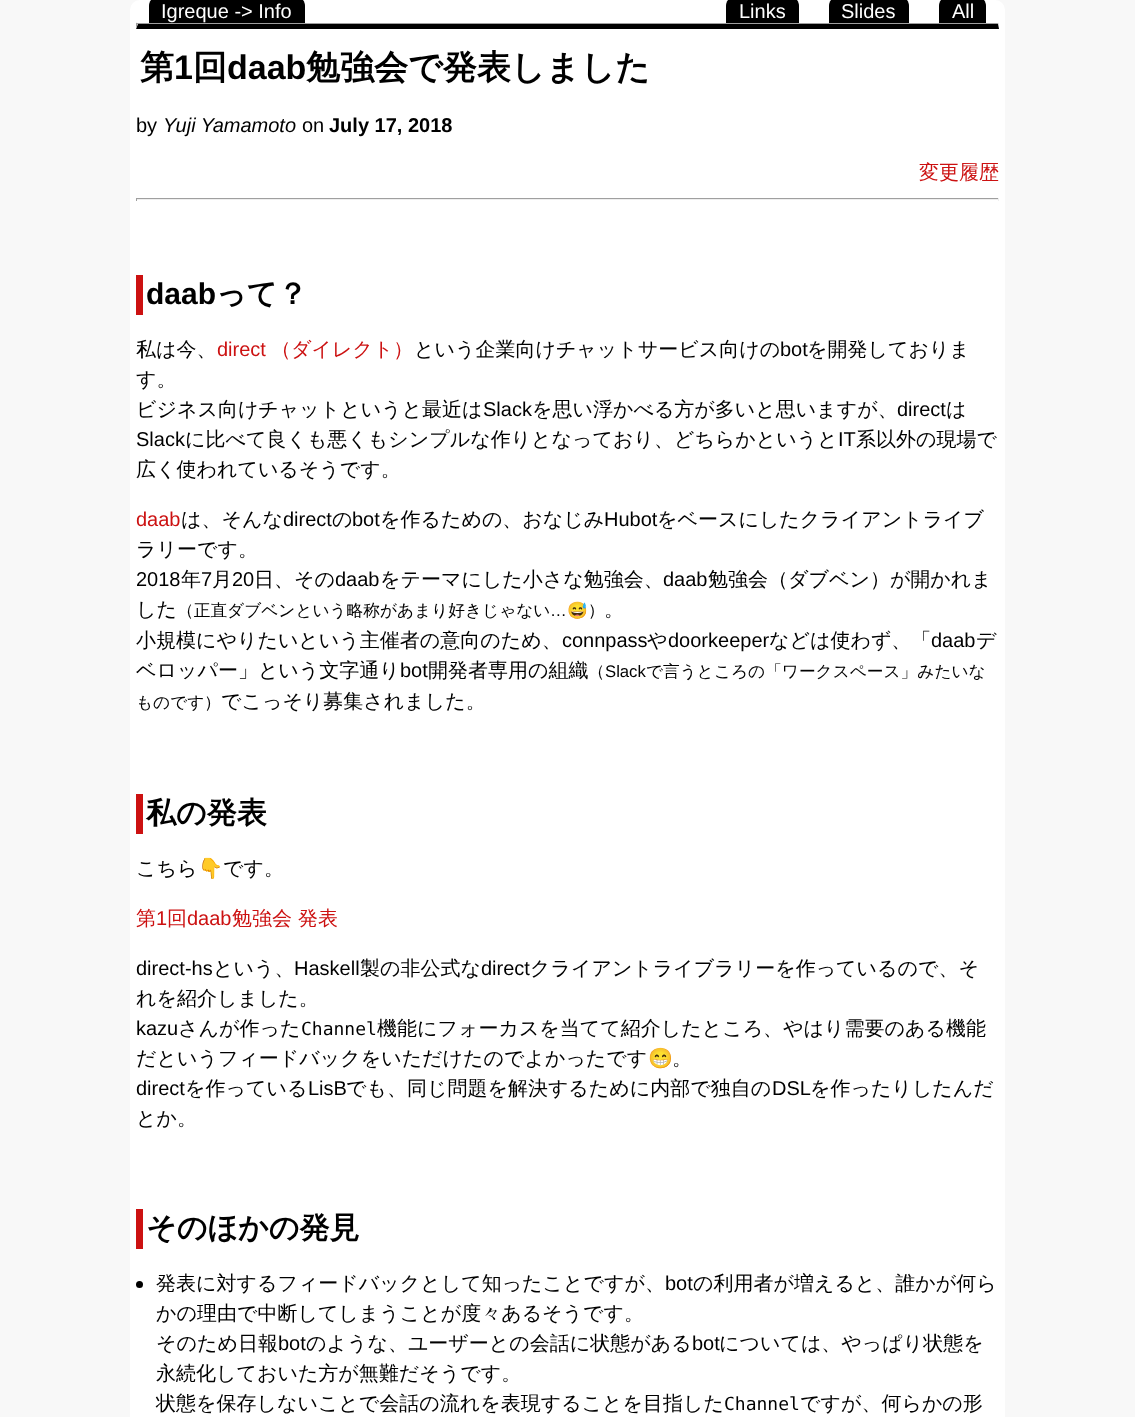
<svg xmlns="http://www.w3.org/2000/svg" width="1135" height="1417">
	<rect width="100%" height="100%" fill="#F8F8F8" />
	<rect x="130" y="0" width="875" height="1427" rx="10" fill="#FFFFFF" />
	<path d="M159-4H295C300.5-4 305 .5 305 6V25H149V6C149 .5 153.5-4 159-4Z" fill="#000000" />
	<text x="161" y="18" font-family="Liberation Sans" font-size="20" fill="#FFFFFF">Igreque -&gt; Info</text>
	<path d="M736-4H789C794.5-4 799 .5 799 6V25H726V6C726 .5 730.5-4 736-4Z" fill="#000000" />
	<text x="739" y="18" font-family="Liberation Sans" font-size="20" fill="#FFFFFF">Links</text>
	<path d="M839-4H899C904.5-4 909 .5 909 6V25H829V6C829 .5 833.5-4 839-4Z" fill="#000000" />
	<text x="841" y="18" font-family="Liberation Sans" font-size="20" fill="#FFFFFF">Slides</text>
	<path d="M949-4H976C981.5-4 986 .5 986 6V25H939V6C939 .5 943.5-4 949-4Z" fill="#000000" />
	<text x="952" y="18" font-family="Liberation Sans" font-size="20" fill="#FFFFFF">All</text>
	<rect x="136" y="23" width="863" height="1" fill="#9F9F9F" />
	<path d="M999 22.5V29L997.5 24Z" fill="#EEEEEE" />
	<path d="M999 29H136L138 24H998Z" fill="#000000" />
	<path d="M136 29V22.5L137.5 24Z" fill="#9F9F9F" />
	<text x="140" y="79" font-family="WenQuanYi Zen Hei" font-size="34" font-weight="700" fill="#000000">第</text>
	<text x="174" y="79" font-family="Liberation Sans" font-size="34" font-weight="700" fill="#000000">1</text>
	<text x="193" y="79" font-family="WenQuanYi Zen Hei" font-size="34" font-weight="700" fill="#000000">回</text>
	<text x="227" y="79" font-family="Liberation Sans" font-size="34" font-weight="700" fill="#000000">daab</text>
	<text x="306" y="79" font-family="WenQuanYi Zen Hei" font-size="34" font-weight="700" fill="#000000">勉強会で発表しました</text>
	<text x="136" y="132" font-family="Liberation Sans" font-size="20" fill="#000000">by</text>
	<text x="163" y="132" font-family="Liberation Sans" font-size="20" font-style="italic" fill="#000000">Yuji Yamamoto</text>
	<text x="302" y="132" font-family="Liberation Sans" font-size="20" fill="#000000">on</text>
	<text x="329" y="132" font-family="Liberation Sans" font-size="20" font-weight="700" fill="#000000">July 17, 2018</text>
	<text x="919" y="179" font-family="WenQuanYi Zen Hei" font-size="20" font-weight="500" fill="#CC1111">変更履歴</text>
	<rect x="136" y="198" width="863" height="1" fill="#9F9F9F" />
	<rect x="998" y="198" width="1" height="3" fill="#EEEEEE" />
	<rect x="136" y="199" width="863" height="1" fill="#EEEEEE" />
	<rect x="136" y="198" width="1" height="3" fill="#9F9F9F" />
	<rect x="136" y="275" width="7" height="40" fill="#CC1111" />
	<text x="146" y="304" font-family="Liberation Sans" font-size="30" font-weight="700" fill="#000000">daab</text>
	<text x="216" y="304" font-family="WenQuanYi Zen Hei" font-size="30" font-weight="700" fill="#000000">って？</text>
	<text x="136" y="356" font-family="WenQuanYi Zen Hei" font-size="20" font-weight="500" fill="#000000">私は今、</text>
	<text x="217" y="356" font-family="Liberation Sans" font-size="20" fill="#CC1111">direct</text>
	<text x="271" y="356" font-family="WenQuanYi Zen Hei" font-size="20" font-weight="500" fill="#CC1111">（ダイレクト）</text>
	<text x="414" y="356" font-family="WenQuanYi Zen Hei" font-size="20" font-weight="500" fill="#000000">という企業向けチャットサービス向けの</text>
	<text x="780" y="356" font-family="Liberation Sans" font-size="20" fill="#000000">bot</text>
	<g font-family="WenQuanYi Zen Hei" font-size="20" font-weight="500" fill="#000000">
		<text x="807" y="356">を開発しておりま</text>
		<text x="136" y="386">す。</text>
		<text x="136" y="416">ビジネス向けチャットというと最近は</text>
	</g>
	<text x="483" y="416" font-family="Liberation Sans" font-size="20" fill="#000000">Slack</text>
	<text x="532" y="416" font-family="WenQuanYi Zen Hei" font-size="20" font-weight="500" fill="#000000">を思い浮かべる方が多いと思いますが、</text>
	<text x="897" y="416" font-family="Liberation Sans" font-size="20" fill="#000000">direct</text>
	<text x="946" y="416" font-family="WenQuanYi Zen Hei" font-size="20" font-weight="500" fill="#000000">は</text>
	<text x="136" y="446" font-family="Liberation Sans" font-size="20" fill="#000000">Slack</text>
	<text x="185" y="446" font-family="WenQuanYi Zen Hei" font-size="20" font-weight="500" fill="#000000">に比べて良くも悪くもシンプルな作りとなっており、どちらかというと</text>
	<text x="838" y="446" font-family="Liberation Sans" font-size="20" fill="#000000">IT</text>
	<g font-family="WenQuanYi Zen Hei" font-size="20" font-weight="500" fill="#000000">
		<text x="856" y="446">系以外の現場で</text>
		<text x="136" y="476">広く使われているそうです。</text>
	</g>
	<text x="136" y="526" font-family="Liberation Sans" font-size="20" fill="#CC1111">daab</text>
	<text x="181" y="526" font-family="WenQuanYi Zen Hei" font-size="20" font-weight="500" fill="#000000">は、そんな</text>
	<text x="283" y="526" font-family="Liberation Sans" font-size="20" fill="#000000">direct</text>
	<text x="332" y="526" font-family="WenQuanYi Zen Hei" font-size="20" font-weight="500" fill="#000000">の</text>
	<text x="352" y="526" font-family="Liberation Sans" font-size="20" fill="#000000">bot</text>
	<text x="380" y="526" font-family="WenQuanYi Zen Hei" font-size="20" font-weight="500" fill="#000000">を作るための、おなじみ</text>
	<text x="604" y="526" font-family="Liberation Sans" font-size="20" fill="#000000">Hubot</text>
	<g font-family="WenQuanYi Zen Hei" font-size="20" font-weight="500" fill="#000000">
		<text x="657" y="526">をベースにしたクライアントライブ</text>
		<text x="136" y="556">ラリーです。</text>
	</g>
	<text x="136" y="586" font-family="Liberation Sans" font-size="20" fill="#000000">2018</text>
	<text x="181" y="586" font-family="WenQuanYi Zen Hei" font-size="20" font-weight="500" fill="#000000">年</text>
	<text x="201" y="586" font-family="Liberation Sans" font-size="20" fill="#000000">7</text>
	<text x="212" y="586" font-family="WenQuanYi Zen Hei" font-size="20" font-weight="500" fill="#000000">月</text>
	<text x="232" y="586" font-family="Liberation Sans" font-size="20" fill="#000000">20</text>
	<text x="254" y="586" font-family="WenQuanYi Zen Hei" font-size="20" font-weight="500" fill="#000000">日、その</text>
	<text x="335" y="586" font-family="Liberation Sans" font-size="20" fill="#000000">daab</text>
	<text x="380" y="586" font-family="WenQuanYi Zen Hei" font-size="20" font-weight="500" fill="#000000">をテーマにした小さな勉強会、</text>
	<text x="663" y="586" font-family="Liberation Sans" font-size="20" fill="#000000">daab</text>
	<g font-family="WenQuanYi Zen Hei" font-size="20" font-weight="500" fill="#000000">
		<text x="708" y="586">勉強会（ダブベン）が開かれま</text>
		<text x="136" y="616">した</text>
	</g>
	<text x="177" y="616" font-family="WenQuanYi Zen Hei" font-size="16.7" font-weight="500" fill="#000000">（正直ダブベンという略称があまり好きじゃない</text>
	<text x="550" y="616" font-family="Liberation Sans" font-size="16.7" fill="#000000">…</text>
	<text x="567" y="616" font-family="Noto Color Emoji" font-size="16.7" fill="#000000">😅</text>
	<text x="588" y="616" font-family="WenQuanYi Zen Hei" font-size="16.7" font-weight="500" fill="#000000">）</text>
	<g font-family="WenQuanYi Zen Hei" font-size="20" font-weight="500" fill="#000000">
		<text x="604" y="616">。</text>
		<text x="136" y="647">小規模にやりたいという主催者の意向のため、</text>
	</g>
	<text x="562" y="647" font-family="Liberation Sans" font-size="20" fill="#000000">connpass</text>
	<text x="647" y="647" font-family="WenQuanYi Zen Hei" font-size="20" font-weight="500" fill="#000000">や</text>
	<text x="668" y="647" font-family="Liberation Sans" font-size="20" fill="#000000">doorkeeper</text>
	<text x="769" y="647" font-family="WenQuanYi Zen Hei" font-size="20" font-weight="500" fill="#000000">などは使わず、「</text>
	<text x="931" y="647" font-family="Liberation Sans" font-size="20" fill="#000000">daab</text>
	<g font-family="WenQuanYi Zen Hei" font-size="20" font-weight="500" fill="#000000">
		<text x="976" y="647">デ</text>
		<text x="136" y="677">ベロッパー」という文字通り</text>
	</g>
	<text x="400" y="677" font-family="Liberation Sans" font-size="20" fill="#000000">bot</text>
	<text x="428" y="677" font-family="WenQuanYi Zen Hei" font-size="20" font-weight="500" fill="#000000">開発者専用の組織</text>
	<text x="588" y="677" font-family="WenQuanYi Zen Hei" font-size="16.7" font-weight="500" fill="#000000">（</text>
	<text x="605" y="677" font-family="Liberation Sans" font-size="16.7" fill="#000000">Slack</text>
	<g font-family="WenQuanYi Zen Hei" font-size="16.7" font-weight="500" fill="#000000">
		<text x="646" y="677">で言うところの「ワークスペース」みたいな</text>
		<text x="136" y="708">ものです）</text>
	</g>
	<text x="221" y="708" font-family="WenQuanYi Zen Hei" font-size="20" font-weight="500" fill="#000000">でこっそり募集されました。</text>
	<rect x="136" y="794" width="7" height="40" fill="#CC1111" />
	<text x="146" y="823" font-family="WenQuanYi Zen Hei" font-size="30" font-weight="700" fill="#000000">私の発表</text>
	<text x="136" y="875" font-family="WenQuanYi Zen Hei" font-size="20" font-weight="500" fill="#000000">こちら</text>
	<text x="198" y="875" font-family="Noto Color Emoji" font-size="20" fill="#000000">👇</text>
	<text x="223" y="875" font-family="WenQuanYi Zen Hei" font-size="20" font-weight="500" fill="#000000">です。</text>
	<text x="136" y="925" font-family="WenQuanYi Zen Hei" font-size="20" font-weight="500" fill="#CC1111">第</text>
	<text x="156" y="925" font-family="Liberation Sans" font-size="20" fill="#CC1111">1</text>
	<text x="167" y="925" font-family="WenQuanYi Zen Hei" font-size="20" font-weight="500" fill="#CC1111">回</text>
	<text x="187" y="925" font-family="Liberation Sans" font-size="20" fill="#CC1111">daab</text>
	<text x="232" y="925" font-family="WenQuanYi Zen Hei" font-size="20" font-weight="500" fill="#CC1111">勉強会 発表</text>
	<text x="136" y="975" font-family="Liberation Sans" font-size="20" fill="#000000">direct-hs</text>
	<text x="213" y="975" font-family="WenQuanYi Zen Hei" font-size="20" font-weight="500" fill="#000000">という、</text>
	<text x="294" y="975" font-family="Liberation Sans" font-size="20" fill="#000000">Haskell</text>
	<text x="360" y="975" font-family="WenQuanYi Zen Hei" font-size="20" font-weight="500" fill="#000000">製の非公式な</text>
	<text x="481" y="975" font-family="Liberation Sans" font-size="20" fill="#000000">direct</text>
	<g font-family="WenQuanYi Zen Hei" font-size="20" font-weight="500" fill="#000000">
		<text x="530" y="975">クライアントライブラリーを作っているので、そ</text>
		<text x="136" y="1005">れを紹介しました。</text>
	</g>
	<text x="136" y="1035" font-family="Liberation Sans" font-size="20" fill="#000000">kazu</text>
	<text x="178" y="1035" font-family="WenQuanYi Zen Hei" font-size="20" font-weight="500" fill="#000000">さんが作った</text>
	<text x="301" y="1035" font-family="DejaVu Sans Mono" font-size="18" fill="#000000">Channel</text>
	<g font-family="WenQuanYi Zen Hei" font-size="20" font-weight="500" fill="#000000">
		<text x="377" y="1035">機能にフォーカスを当てて紹介したところ、やはり需要のある機能</text>
		<text x="136" y="1065">だというフィードバックをいただけたのでよかったです</text>
	</g>
	<text x="648" y="1065" font-family="Noto Color Emoji" font-size="20" fill="#000000">😁</text>
	<text x="672" y="1065" font-family="WenQuanYi Zen Hei" font-size="20" font-weight="500" fill="#000000">。</text>
	<text x="136" y="1095" font-family="Liberation Sans" font-size="20" fill="#000000">direct</text>
	<text x="185" y="1095" font-family="WenQuanYi Zen Hei" font-size="20" font-weight="500" fill="#000000">を作っている</text>
	<text x="308" y="1095" font-family="Liberation Sans" font-size="20" fill="#000000">LisB</text>
	<text x="346" y="1095" font-family="WenQuanYi Zen Hei" font-size="20" font-weight="500" fill="#000000">でも、同じ問題を解決するために内部で独自の</text>
	<text x="772" y="1095" font-family="Liberation Sans" font-size="20" fill="#000000">DSL</text>
	<g font-family="WenQuanYi Zen Hei" font-size="20" font-weight="500" fill="#000000">
		<text x="810" y="1095">を作ったりしたんだ</text>
		<text x="136" y="1125">とか。</text>
	</g>
	<rect x="136" y="1209" width="7" height="40" fill="#CC1111" />
	<text x="146" y="1238" font-family="WenQuanYi Zen Hei" font-size="30" font-weight="700" fill="#000000">そのほかの発見</text>
	<circle cx="139.5" cy="1284.5" r="3.5" fill="#000000" />
	<text x="156" y="1290" font-family="WenQuanYi Zen Hei" font-size="20" font-weight="500" fill="#000000">発表に対するフィードバックとして知ったことですが、</text>
	<text x="665" y="1290" font-family="Liberation Sans" font-size="20" fill="#000000">bot</text>
	<g font-family="WenQuanYi Zen Hei" font-size="20" font-weight="500" fill="#000000">
		<text x="693" y="1290">の利用者が増えると、誰かが何ら</text>
		<text x="156" y="1320">かの理由で中断してしまうことが度々あるそうです。</text>
		<text x="156" y="1350">そのため日報</text>
	</g>
	<text x="278" y="1350" font-family="Liberation Sans" font-size="20" fill="#000000">bot</text>
	<text x="306" y="1350" font-family="WenQuanYi Zen Hei" font-size="20" font-weight="500" fill="#000000">のような、ユーザーとの会話に状態がある</text>
	<text x="692" y="1350" font-family="Liberation Sans" font-size="20" fill="#000000">bot</text>
	<g font-family="WenQuanYi Zen Hei" font-size="20" font-weight="500" fill="#000000">
		<text x="719" y="1350">については、やっぱり状態を</text>
		<text x="156" y="1380">永続化しておいた方が無難だそうです。</text>
		<text x="156" y="1410">状態を保存しないことで会話の流れを表現することを目指した</text>
	</g>
	<text x="724" y="1410" font-family="DejaVu Sans Mono" font-size="18" fill="#000000">Channel</text>
	<text x="800" y="1410" font-family="WenQuanYi Zen Hei" font-size="20" font-weight="500" fill="#000000">ですが、何らかの形</text>
</svg>
